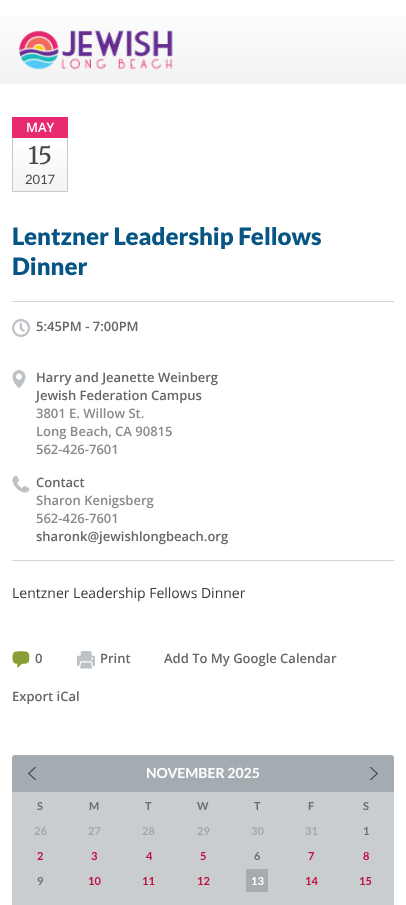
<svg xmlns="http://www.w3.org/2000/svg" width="406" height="905">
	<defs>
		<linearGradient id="g1" gradientUnits="userSpaceOnUse" x1="203" y1="0" x2="203" y2="84"><stop offset="0" stop-color="#FFFFFF" /><stop offset="1" stop-color="#F2F2F2" /></linearGradient>
		<linearGradient id="g2" gradientUnits="userSpaceOnUse" x1="40" y1="138" x2="40" y2="191"><stop offset="0" stop-color="#FFFFFF" /><stop offset="1" stop-color="#F3F3F3" /></linearGradient>
	</defs>
	<rect width="100%" height="100%" fill="#FFFFFF" />
	<rect x="0" y="16" width="406" height="68" fill="url(#g1)" />
	<image x="19" y="30" width="154" height="40" href="assets/img1.png" />
	<rect x="12" y="117" width="56" height="21" fill="#E7296F" />
	<text x="26" y="132" font-family="Open Sans" font-size="13" font-weight="600" fill="#FFFFFF">MAY</text>
	<rect x="13" y="149" width="54" height="42" fill="url(#g2)" />
	<rect x="67" y="138" width="1" height="54" fill="#C9C9C9" />
	<rect x="12" y="191" width="56" height="1" fill="#C9C9C9" />
	<rect x="12" y="138" width="1" height="54" fill="#C9C9C9" />
	<text x="28" y="164" font-family="Merriweather" font-size="24" fill="#484848">15</text>
	<text x="25" y="184" font-family="Lato" font-size="13" fill="#484848">2017</text>
	<g font-family="Lato" font-size="24" font-weight="900" fill="#075585">
		<text x="12" y="245">Lentzner Leadership Fellows</text>
		<text x="12" y="275">Dinner</text>
	</g>
	<rect x="12" y="301" width="382" height="1" fill="#D5D5D5" />
	<image x="12" y="319" width="18" height="18" href="assets/img2.png" />
	<text x="36" y="331" font-family="Open Sans" font-size="13" font-weight="600" fill="#666666">5:45PM - 7:00PM</text>
	<image x="12" y="370" width="14" height="18" href="assets/img3.png" />
	<g font-family="Open Sans" font-size="13" font-weight="600" fill="#666666">
		<text x="36" y="382">Harry and Jeanette Weinberg</text>
		<text x="36" y="400">Jewish Federation Campus</text>
	</g>
	<g font-family="Open Sans" font-size="13" font-weight="600" fill="#8A8A8A">
		<text x="36" y="418">3801 E. Willow St.</text>
		<text x="36" y="436">Long Beach, CA 90815</text>
		<text x="36" y="454">562-426-7601</text>
	</g>
	<image x="12" y="475" width="18" height="18" href="assets/img4.png" />
	<text x="36" y="487" font-family="Open Sans" font-size="13" font-weight="600" fill="#666666">Contact</text>
	<g font-family="Open Sans" font-size="13" font-weight="600" fill="#8A8A8A">
		<text x="36" y="505">Sharon Kenigsberg</text>
		<text x="36" y="523">562-426-7601</text>
	</g>
	<text x="36" y="541" font-family="Open Sans" font-size="13" font-weight="600" fill="#666666">sharonk@jewishlongbeach.org</text>
	<rect x="12" y="560" width="382" height="1" fill="#D5D5D5" />
	<text x="12" y="598" font-family="Open Sans" font-size="14" fill="#383838">Lentzner Leadership Fellows Dinner</text>
	<image x="12" y="651" width="18" height="17" href="assets/img5.png" />
	<text x="35" y="663" font-family="Open Sans" font-size="13" font-weight="600" fill="#666666">0</text>
	<image x="77" y="651" width="18" height="18" href="assets/img6.png" />
	<g font-family="Open Sans" font-size="13" font-weight="600" fill="#666666">
		<text x="100" y="663">Print</text>
		<text x="164" y="663">Add To My Google Calendar</text>
		<text x="12" y="701">Export iCal</text>
	</g>
	<rect x="12" y="755" width="382" height="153" rx="3" fill="#CACDCF" />
	<path d="M15 755H391C392.5 755 394 756.5 394 758V792H12V758C12 756.5 13.5 755 15 755Z" fill="#A4ACB1" />
	<image x="28" y="767" width="9" height="13" href="assets/img7.png" />
	<text x="146" y="778" font-family="Lato" font-size="14" font-weight="700" fill="#FFFFFF">NOVEMBER 2025</text>
	<image x="369" y="767" width="9" height="13" href="assets/img8.png" />
	<g font-family="Lato" font-size="11" font-weight="700" fill="#6C6C6C">
		<text x="37" y="810">S</text>
		<text x="89" y="810">M</text>
		<text x="145" y="810">T</text>
		<text x="197" y="810">W</text>
		<text x="254" y="810">T</text>
		<text x="308" y="810">F</text>
		<text x="363" y="810">S</text>
	</g>
	<g font-family="Lato" font-size="11" font-weight="700" fill="#A6A6A6">
		<text x="34" y="835">26</text>
		<text x="88" y="835">27</text>
		<text x="142" y="835">28</text>
		<text x="197" y="835">29</text>
		<text x="251" y="835">30</text>
		<text x="305" y="835">31</text>
	</g>
	<text x="363" y="835" font-family="Lato" font-size="11" font-weight="700" fill="#6C6C6C">1</text>
	<g font-family="Lato" font-size="11" font-weight="700" fill="#C10F3E">
		<text x="37" y="860">2</text>
		<text x="91" y="860">3</text>
		<text x="146" y="860">4</text>
		<text x="200" y="860">5</text>
	</g>
	<text x="254" y="860" font-family="Lato" font-size="11" font-weight="700" fill="#6C6C6C">6</text>
	<g font-family="Lato" font-size="11" font-weight="700" fill="#C10F3E">
		<text x="308" y="860">7</text>
		<text x="363" y="860">8</text>
	</g>
	<text x="37" y="885" font-family="Lato" font-size="11" font-weight="700" fill="#6C6C6C">9</text>
	<g font-family="Lato" font-size="11" font-weight="700" fill="#C10F3E">
		<text x="88" y="885">10</text>
		<text x="142" y="885">11</text>
		<text x="197" y="885">12</text>
	</g>
	<rect x="246" y="869" width="22" height="23" fill="#A4ACB1" />
	<text x="251" y="885" font-family="Lato" font-size="11" font-weight="700" fill="#FFFFFF">13</text>
	<g font-family="Lato" font-size="11" font-weight="700" fill="#C10F3E">
		<text x="305" y="885">14</text>
		<text x="359" y="885">15</text>
	</g>
</svg>
